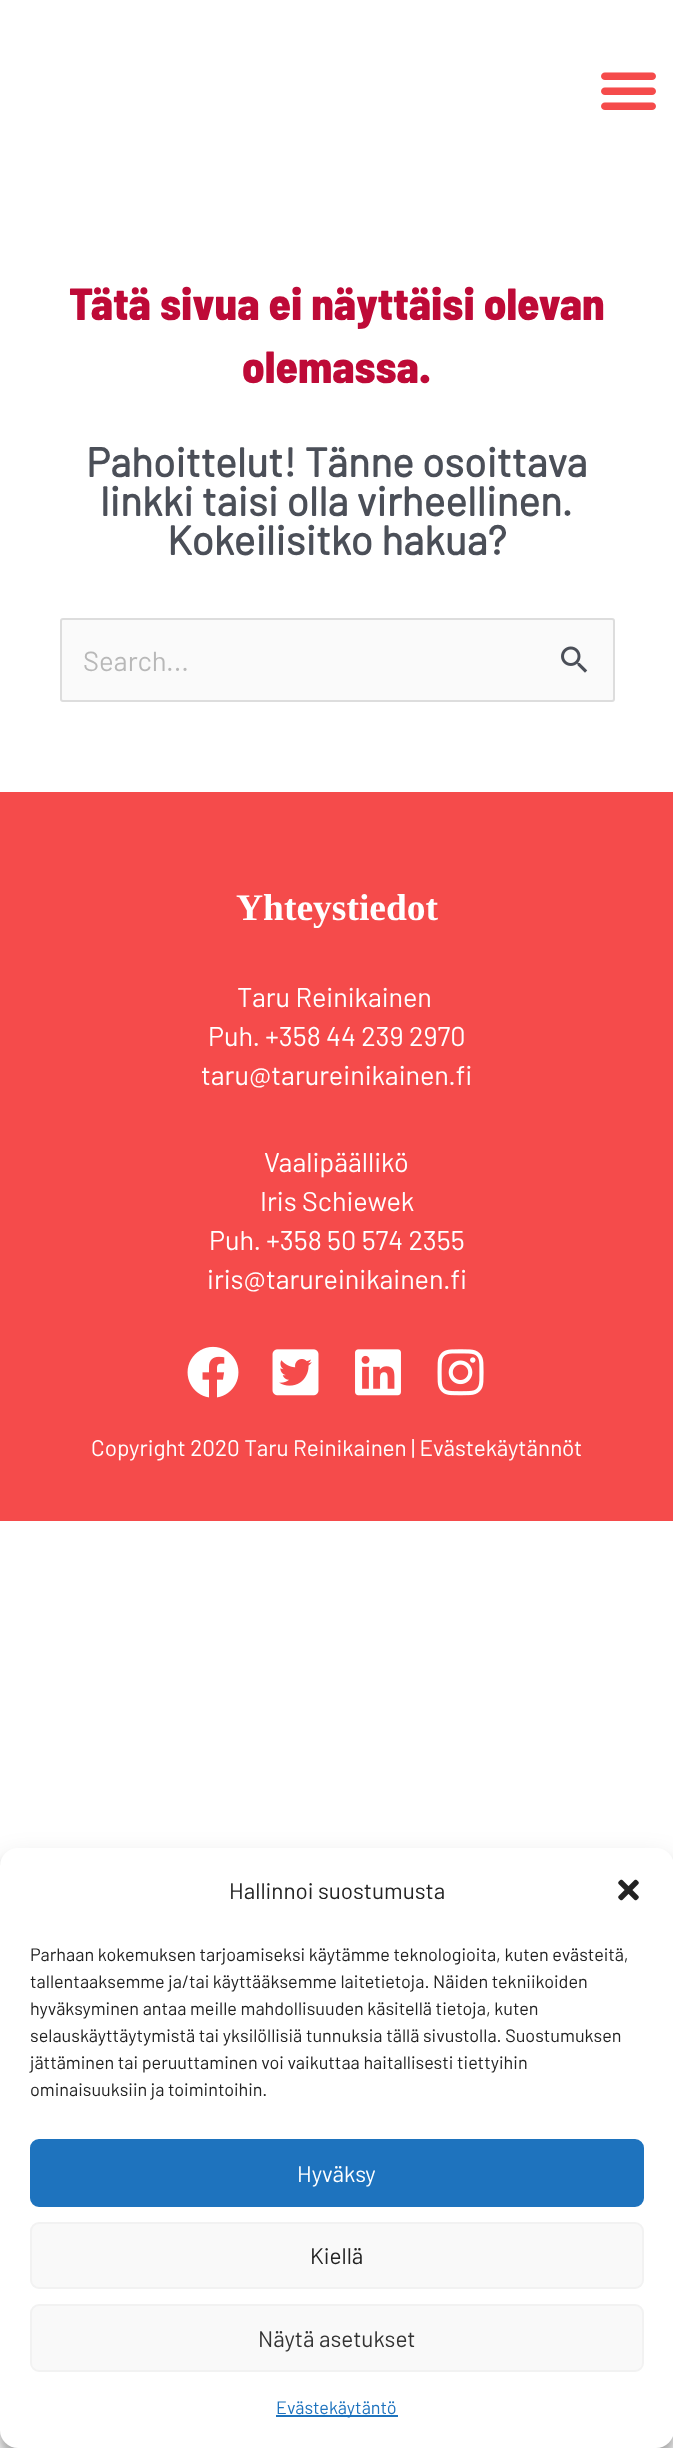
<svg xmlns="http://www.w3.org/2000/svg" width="673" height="2448">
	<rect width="100%" height="100%" fill="#FFFFFF" />
	<image x="601" y="72" width="55" height="38" href="assets/img1.png" />
	<g font-family="Barlow Semi Condensed" font-size="45" font-weight="800" fill="#BE0A37">
		<text x="69" y="320">Tätä sivua ei näyttäisi olevan</text>
		<text x="242" y="383">olemassa.</text>
	</g>
	<g font-family="Barlow" font-size="41" font-weight="700" fill="#4B4F58">
		<text x="86" y="477">Pahoittelut! Tänne osoittava</text>
		<text x="100" y="516">linkki taisi olla virheellinen.</text>
		<text x="167" y="555">Kokeilisitko hakua?</text>
	</g>
	<rect x="61" y="619" width="553" height="82" rx="2" fill="#FAFAFA" stroke="#DDDDDD" stroke-width="2" />
	<text x="83" y="671" font-family="Barlow" font-size="27.5" fill="#B8B8B8">Search...</text>
	<image x="561" y="646" width="27" height="27" href="assets/img2.png" />
	<rect x="0" y="792" width="673" height="729" fill="#F54B4B" />
	<text x="236" y="920" font-family="Liberation Serif" font-size="37.5" font-weight="700" fill="#FFFFFF">Yhteystiedot</text>
	<g font-family="'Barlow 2'" font-size="27" fill="#FFFFFF">
		<text x="237" y="1007">Taru Reinikainen</text>
		<text x="208" y="1046">Puh. +358 44 239 2970</text>
		<text x="201" y="1085">taru@tarureinikainen.fi</text>
		<text x="264" y="1172">Vaalipäällikö</text>
		<text x="260" y="1211">Iris Schiewek</text>
		<text x="209" y="1250">Puh. +358 50 574 2355</text>
		<text x="207" y="1289">iris@tarureinikainen.fi</text>
	</g>
	<image x="187" y="1346" width="52" height="52" href="assets/img3.png" />
	<image x="272" y="1349" width="47" height="47" href="assets/img4.png" />
	<image x="355" y="1349" width="46" height="47" href="assets/img5.png" />
	<image x="437" y="1349" width="47" height="47" href="assets/img6.png" />
	<text x="91" y="1456" font-family="'Barlow 2'" font-size="22.5" fill="#FFFFFF">Copyright 2020 Taru Reinikainen | Evästekäytännöt</text>
	<rect x="0" y="1857" width="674" height="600" rx="18" fill="#000000" fill-opacity="0.23" filter="blur(4.5px)" />
	<rect x="0" y="1863" width="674" height="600" rx="18" fill="#000000" fill-opacity="0.19" filter="blur(15px)" />
	<rect x="0" y="1848" width="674" height="600" rx="18" fill="#FFFFFF" />
	<text x="229" y="1899" font-family="'Barlow 2'" font-size="22.5" fill="#222222">Hallinnoi suostumusta</text>
	<image x="618" y="1879" width="21" height="22" href="assets/img7.png" />
	<g font-family="'Barlow 2'" font-size="18" fill="#222222">
		<text x="30" y="1961">Parhaan kokemuksen tarjoamiseksi käytämme teknologioita, kuten evästeitä,</text>
		<text x="30" y="1988">tallentaaksemme ja/tai käyttääksemme laitetietoja. Näiden tekniikoiden</text>
		<text x="30" y="2015">hyväksyminen antaa meille mahdollisuuden käsitellä tietoja, kuten</text>
		<text x="30" y="2042">selauskäyttäytymistä tai yksilöllisiä tunnuksia tällä sivustolla. Suostumuksen</text>
		<text x="30" y="2069">jättäminen tai peruuttaminen voi vaikuttaa haitallisesti tiettyihin</text>
		<text x="30" y="2096">ominaisuuksiin ja toimintoihin.</text>
	</g>
	<rect x="31" y="2140" width="612" height="66" rx="8" fill="#1E73BE" stroke="#1E73BE" stroke-width="2" />
	<text x="297" y="2182" font-family="'Barlow 2'" font-size="22.5" fill="#FFFFFF">Hyväksy</text>
	<rect x="31" y="2223" width="612" height="65" rx="8" fill="#F9F9F9" stroke="#F2F2F2" stroke-width="2" />
	<text x="310" y="2264" font-family="'Barlow 2'" font-size="22.5" fill="#222222">Kiellä</text>
	<rect x="31" y="2305" width="612" height="66" rx="8" fill="#F9F9F9" stroke="#F2F2F2" stroke-width="2" />
	<text x="258" y="2347" font-family="'Barlow 2'" font-size="22.5" fill="#333333">Näytä asetukset</text>
	<rect x="276" y="2415" width="122" height="2" fill="#1E73BE" />
	<text x="276" y="2414" font-family="'Barlow 2'" font-size="18" fill="#1E73BE">Evästekäytäntö</text>
</svg>
